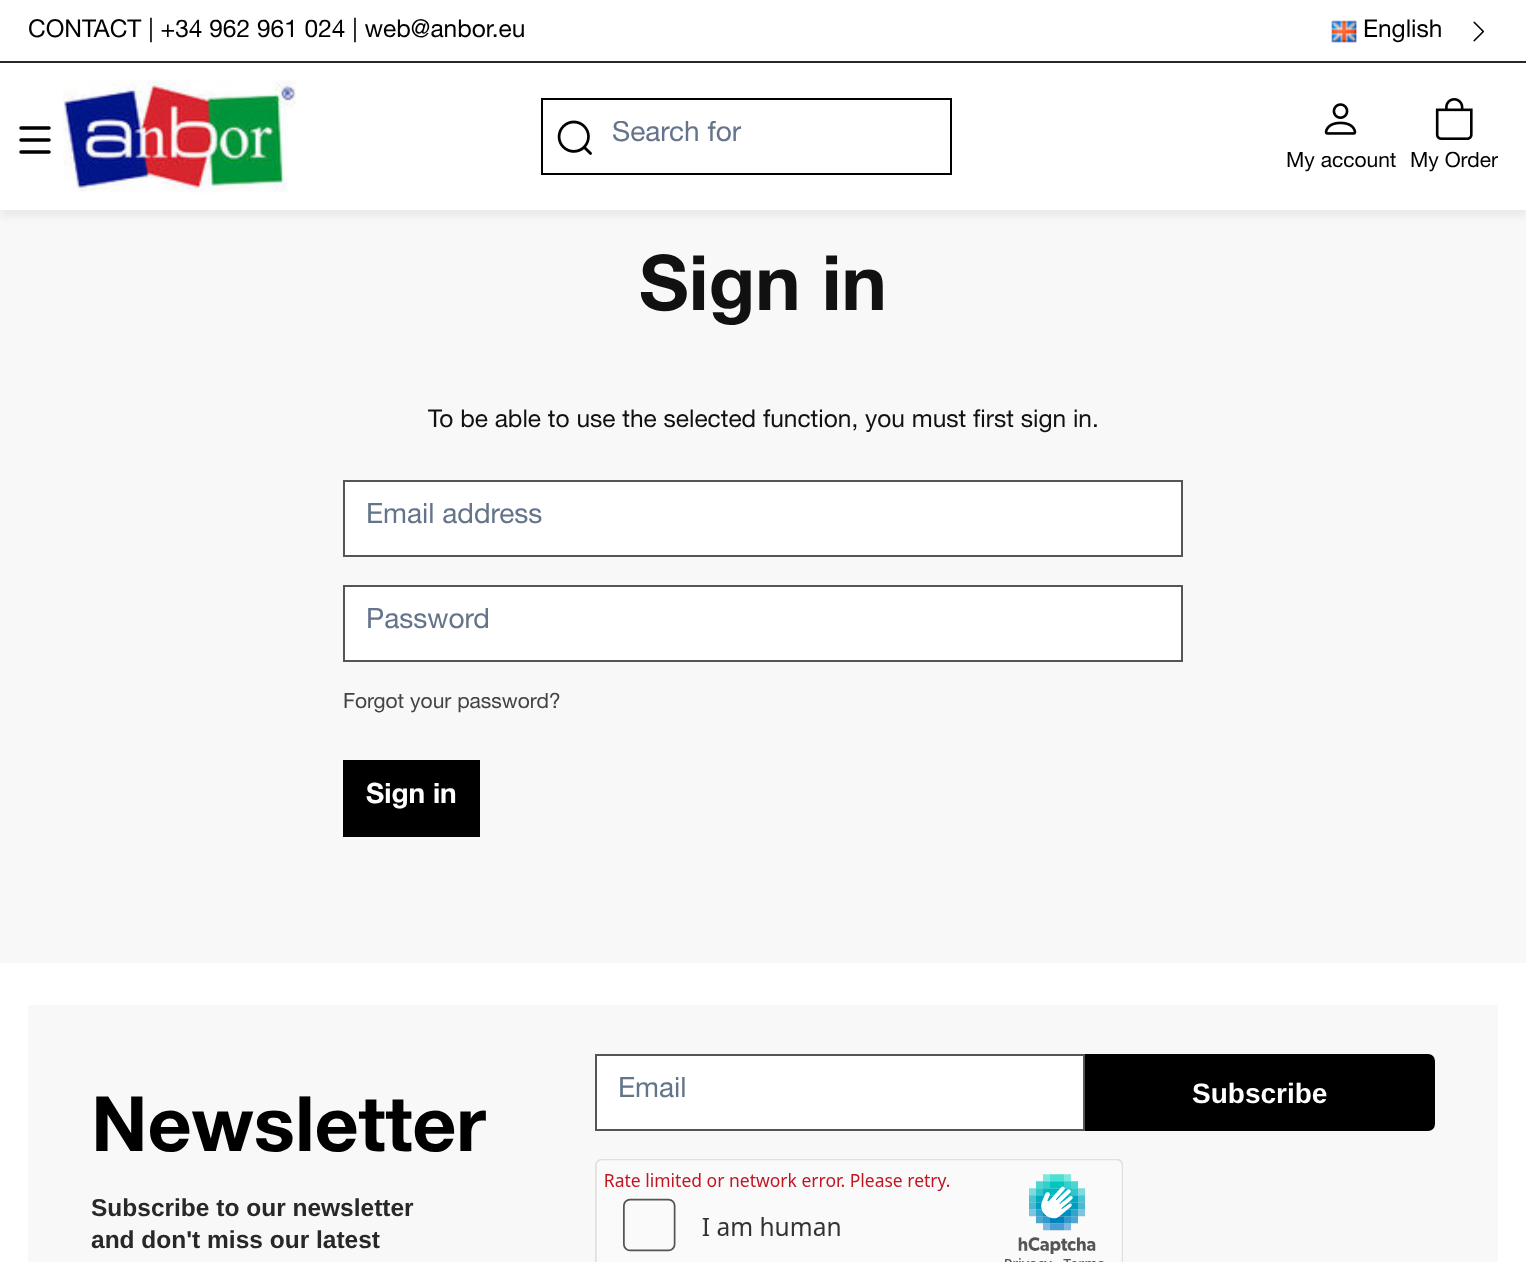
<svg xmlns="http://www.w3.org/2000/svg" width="1526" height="1262">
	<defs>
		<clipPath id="clip1"><rect x="613" y="121" width="316" height="33" /></clipPath>
	</defs>
	<rect width="100%" height="100%" fill="#F8F8F8" />
	<rect x="0" y="7" width="1526" height="210" fill="#000000" fill-opacity="0.05" filter="blur(3.5px)" />
	<rect x="0" y="0" width="1526" height="61" fill="#FFFFFF" />
	<rect x="0" y="61" width="1526" height="2" fill="#282828" />
	<text x="28" y="37" font-family="Helvetica Neue" font-size="24.5" fill="#000000">CONTACT | +34 962 961 024 | web@anbor.eu</text>
	<image x="1331" y="20" width="26" height="23" href="assets/img1.png" />
	<text x="1363" y="37" font-family="Helvetica Neue" font-size="24.5" fill="#000000">English</text>
	<image x="1473" y="21" width="12" height="21" href="assets/img2.png" />
	<rect x="0" y="63" width="1526" height="147" fill="#FFFFFF" />
	<image x="63" y="80" width="233" height="113" href="assets/img3.png" />
	<rect x="542" y="99" width="409" height="75" fill="none" stroke="#000000" stroke-width="2" />
	<image x="557" y="120" width="35" height="35" href="assets/img4.png" />
	<g clip-path="url(#clip1)">
		<text x="612" y="141" font-family="Helvetica Neue" font-size="28" fill="#64748B">Search for</text>
	</g>
	<image x="1324" y="103" width="33" height="32" href="assets/img5.png" />
	<text x="1286" y="167" font-family="Helvetica Neue" font-size="21" fill="#000000">My account</text>
	<image x="1435" y="98" width="38" height="42" href="assets/img6.png" />
	<text x="1410" y="167" font-family="Helvetica Neue" font-size="21" fill="#000000">My Order</text>
	<path d="M21 128H49M21 140H49M49 152H21" fill="none" stroke="#000000" stroke-width="3.5" stroke-linecap="round" />
	<text x="639" y="310" font-family="Helvetica Neue" font-size="76.5" font-weight="700" fill="#111111">Sign in</text>
	<text x="428" y="427" font-family="Helvetica Neue" font-size="24.5" fill="#111111">To be able to use the selected function, you must first sign in.</text>
	<rect x="344" y="481" width="838" height="75" fill="#FFFFFF" stroke="#555555" stroke-width="2" />
	<text x="366" y="523" font-family="Helvetica Neue" font-size="28" fill="#64748B">Email address</text>
	<rect x="344" y="586" width="838" height="75" fill="#FFFFFF" stroke="#555555" stroke-width="2" />
	<text x="366" y="628" font-family="Helvetica Neue" font-size="28" fill="#64748B">Password</text>
	<text x="343" y="708" font-family="Helvetica Neue" font-size="21" fill="#444444">Forgot your password?</text>
	<rect x="343" y="760" width="137" height="77" fill="#000000" />
	<text x="366" y="803" font-family="Helvetica Neue" font-size="28" font-weight="700" fill="#FFFFFF">Sign in</text>
	<rect x="0" y="963" width="1526" height="299" fill="#FFFFFF" />
	<rect x="28" y="1005" width="1470" height="257" fill="#F8F8F8" />
	<rect x="596" y="1055" width="488" height="75" fill="#FFFFFF" stroke="#555555" stroke-width="2" />
	<text x="618" y="1097" font-family="Helvetica Neue" font-size="28" fill="#64748B">Email</text>
	<path d="M1086 1055H1428C1431.5 1055 1434 1057.5 1434 1061V1124C1434 1127.5 1431.5 1130 1428 1130H1086Z" fill="#000000" stroke="#000000" stroke-width="2" />
	<text x="1192" y="1103" font-family="Liberation Sans" font-size="28" font-weight="700" fill="#FFFFFF">Subscribe</text>
	<image x="595" y="1159" width="528" height="103" href="assets/img7.png" />
	<text x="91" y="1151" font-family="Helvetica Neue" font-size="76.5" font-weight="700" fill="#000000">Newsletter</text>
	<g font-family="Liberation Sans" font-size="24.5" font-weight="700" fill="#282828">
		<text x="91" y="1216">Subscribe to our newsletter</text>
		<text x="91" y="1248">and don't miss our latest</text>
	</g>
</svg>
